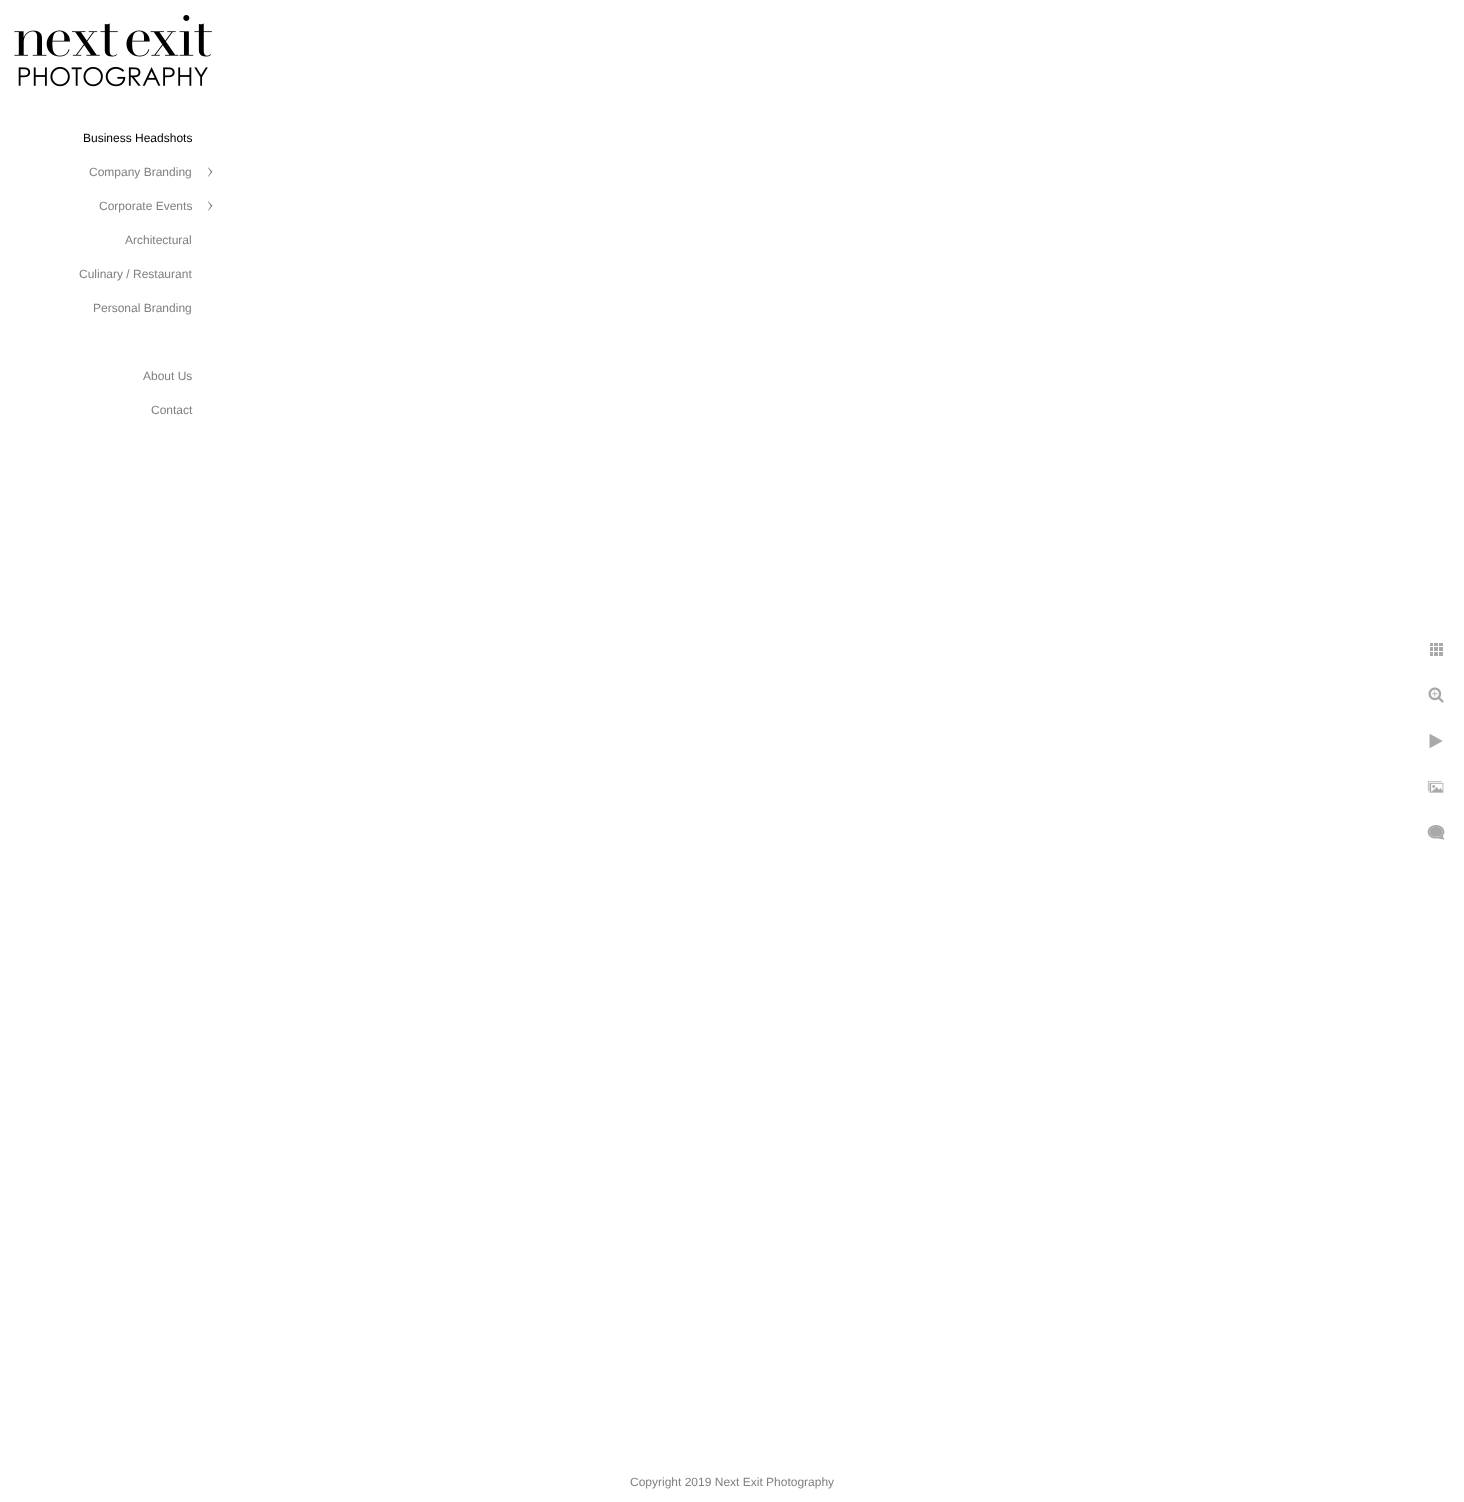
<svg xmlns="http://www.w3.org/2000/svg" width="1464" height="1502">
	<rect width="100%" height="100%" fill="#FFFFFF" />
	<image x="14" y="15" width="198" height="72" href="assets/img1.png" />
	<text x="83" y="142" font-family="Liberation Sans" font-size="12" fill="#000000">Business Headshots</text>
	<text x="89" y="176" font-family="Liberation Sans" font-size="12" fill="#808080">Company Branding</text>
	<image x="207" y="167" width="6" height="10" href="assets/img2.png" />
	<text x="99" y="210" font-family="Liberation Sans" font-size="12" fill="#808080">Corporate Events</text>
	<image x="207" y="201" width="6" height="10" href="assets/img2.png" />
	<g font-family="Liberation Sans" font-size="12" fill="#808080">
		<text x="125" y="244">Architectural</text>
		<text x="79" y="278">Culinary / Restaurant</text>
		<text x="93" y="312">Personal Branding</text>
		<text x="143" y="380">About Us</text>
		<text x="151" y="414">Contact</text>
	</g>
	<image x="1430" y="643" width="13" height="13" href="assets/img3.png" />
	<image x="1428" y="687" width="16" height="16" href="assets/img4.png" />
	<image x="1429" y="734" width="14" height="14" href="assets/img5.png" />
	<image x="1427" y="781" width="17" height="12" href="assets/img6.png" />
	<image x="1427" y="825" width="18" height="15" href="assets/img7.png" />
	<text x="630" y="1486" font-family="Liberation Sans" font-size="12" fill="#808080">Copyright 2019 Next Exit Photography</text>
</svg>
